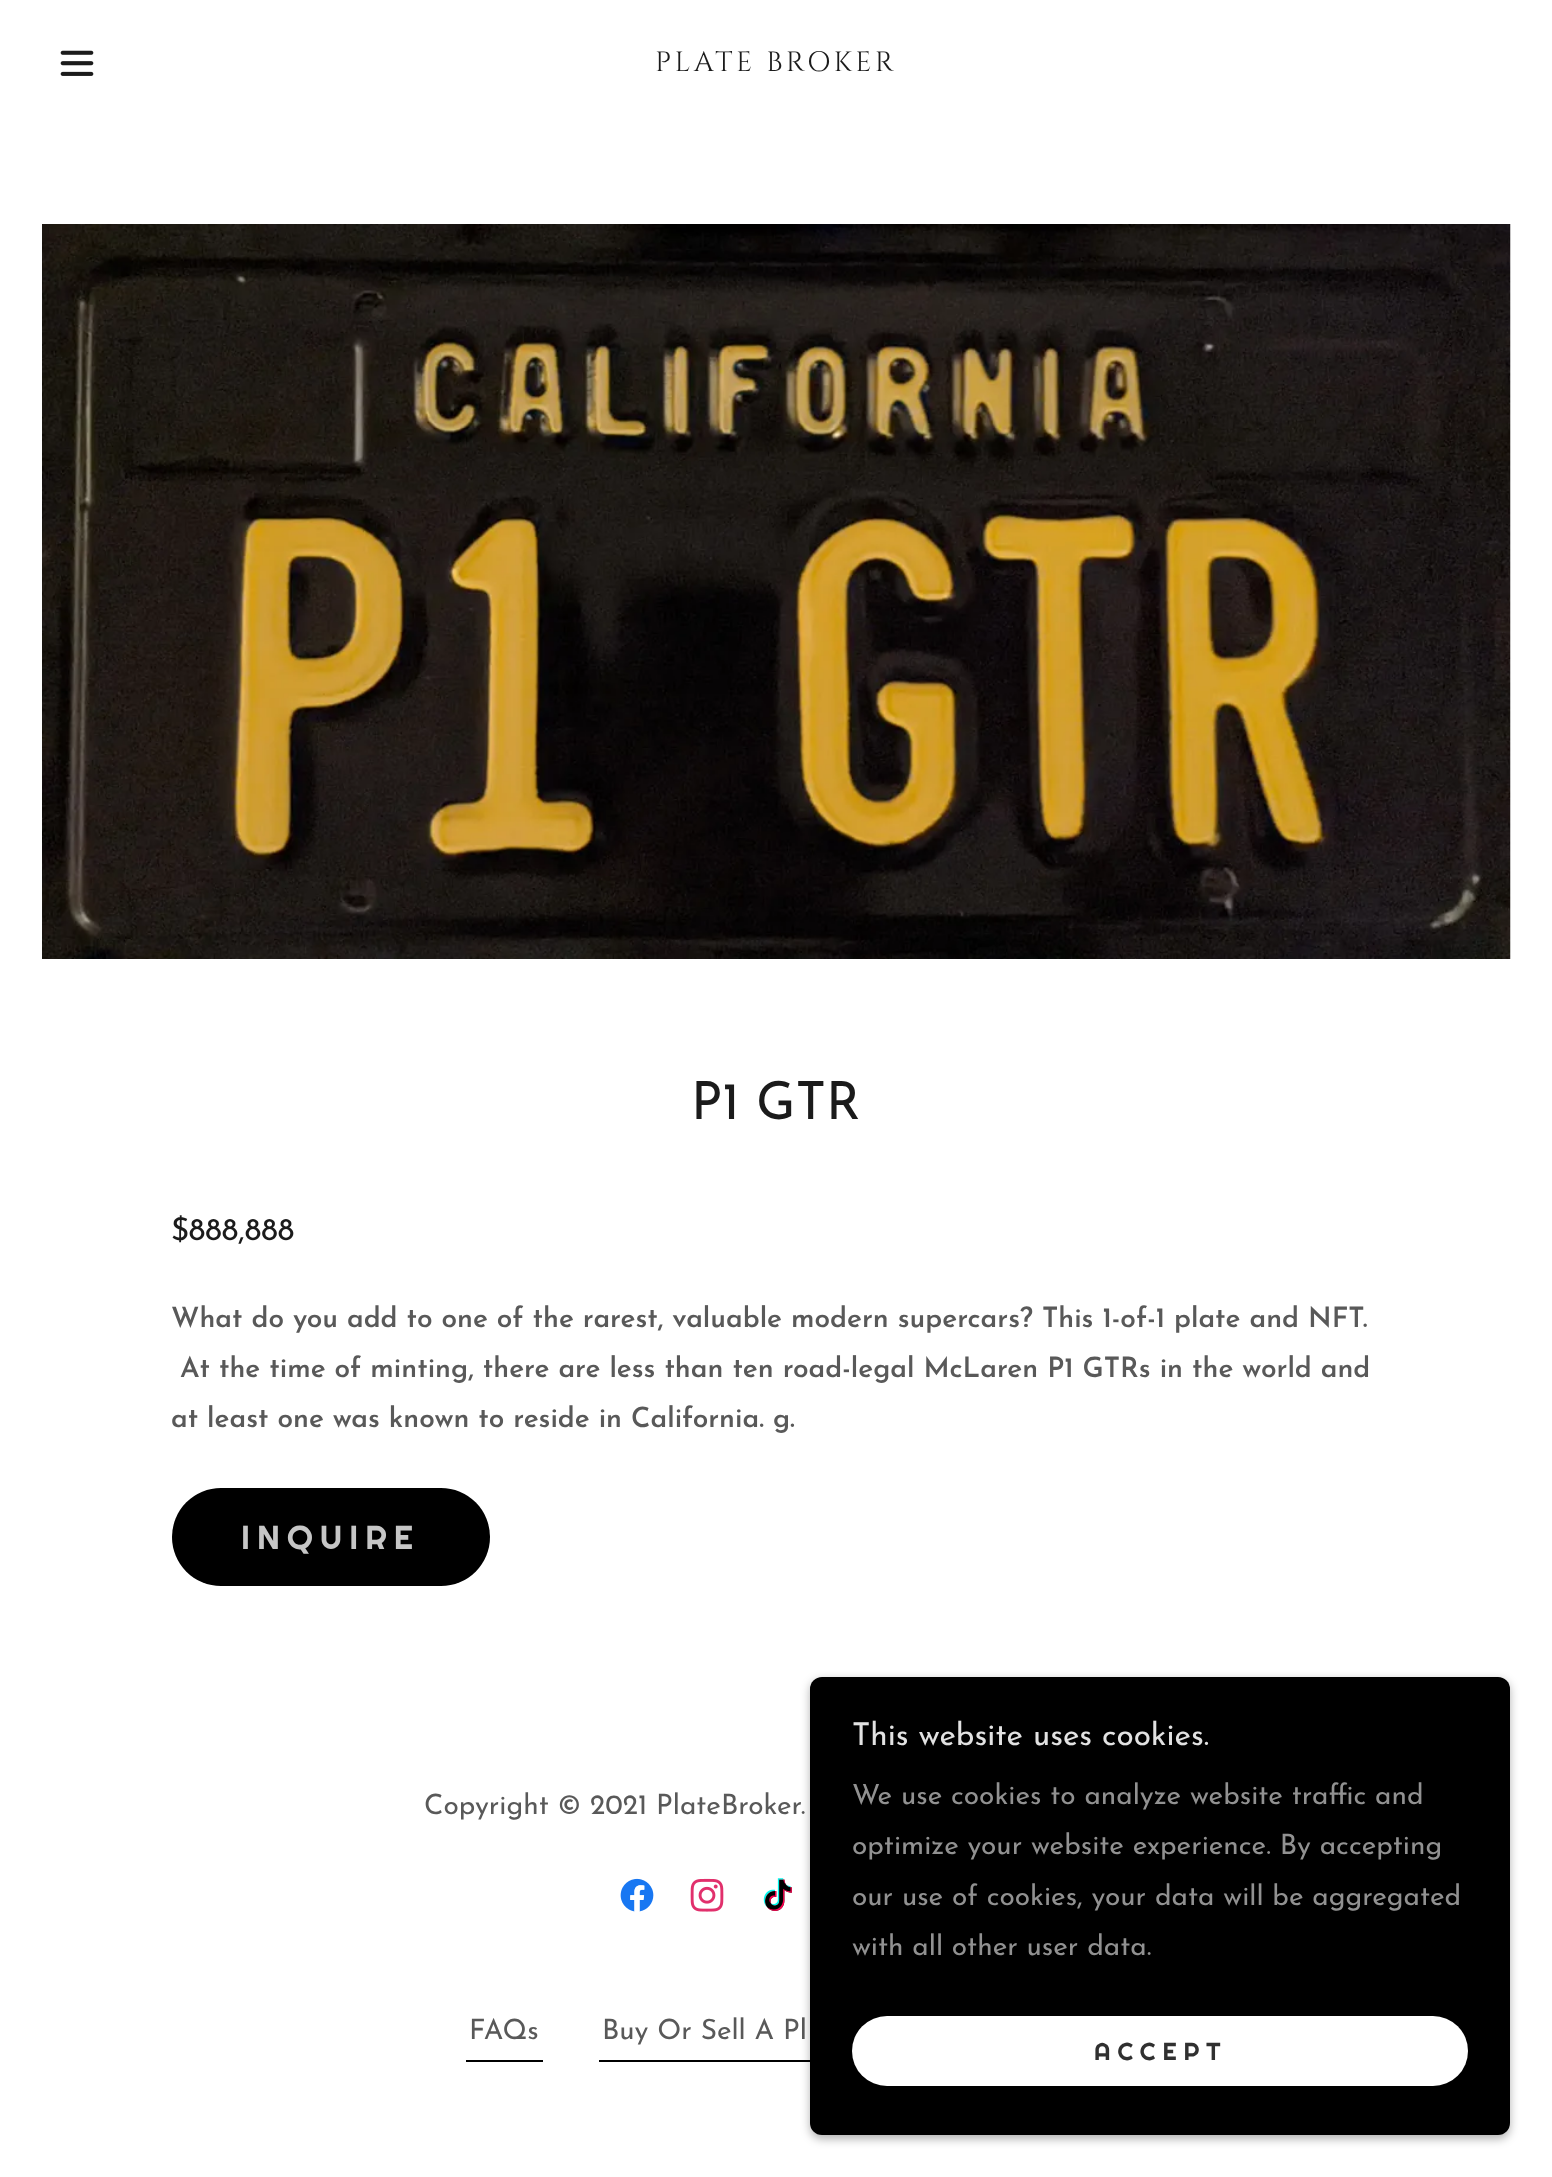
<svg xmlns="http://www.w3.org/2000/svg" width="1552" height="2177">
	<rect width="100%" height="100%" fill="#FFFFFF" />
	<image x="60" y="50" width="34" height="26" href="assets/img1.png" />
	<text x="655" y="71" font-family="Cinzel" font-size="28" letter-spacing="3.5" fill="#1B1B1B">PLATE BROKER</text>
	<image x="42" y="224" width="1469" height="735" href="assets/img2.png" />
	<text x="691" y="1119" font-family="Josefin Sans" font-size="52.5" fill="#1B1B1B">P1 GTR</text>
	<text x="171" y="1240" font-family="Josefin Sans" font-size="31.5" fill="#1B1B1B">$888,888</text>
	<g font-family="Josefin Sans" font-size="28" font-weight="600" fill="#595959">
		<text x="171" y="1327">What do you add to one of the rarest, valuable modern supercars? This 1-of-1 plate and NFT.</text>
		<text x="180" y="1377">At the time of minting, there are less than ten road-legal McLaren P1 GTRs in the world and</text>
		<text x="171" y="1427">at least one was known to reside in California. g.</text>
	</g>
	<rect x="172" y="1488" width="318" height="98" rx="49" fill="#000000" />
	<text x="241" y="1549" font-family="Righteous" font-size="33.25" letter-spacing="7" fill="#C6C6C6">INQUIRE</text>
	<text x="424" y="1814" font-family="Josefin Sans" font-size="28" fill="#595959">Copyright © 2021 PlateBroker.</text>
	<image x="620" y="1878" width="34" height="34" href="assets/img3.png" />
	<image x="690" y="1878" width="34" height="34" href="assets/img4.png" />
	<image x="763" y="1878" width="29" height="33" href="assets/img5.png" />
	<rect x="466" y="2060" width="77" height="2" fill="#000000" />
	<text x="469" y="2039" font-family="Josefin Sans" font-size="28" fill="#595959">FAQs</text>
	<rect x="599" y="2060" width="211" height="2" fill="#000000" />
	<text x="602" y="2039" font-family="Josefin Sans" font-size="28" fill="#595959">Buy Or Sell A Pl</text>
	<rect x="810" y="1680" width="700" height="459" rx="12" fill="#000000" fill-opacity="0.3" filter="blur(5px)" />
	<rect x="810" y="1677" width="700" height="458" rx="12" fill="#000000" />
	<text x="852" y="1745" font-family="Josefin Sans" font-size="31.5" fill="#E2E2E2">This website uses cookies.</text>
	<g font-family="Josefin Sans" font-size="28" fill="#919191">
		<text x="852" y="1804">We use cookies to analyze website traffic and</text>
		<text x="852" y="1854">optimize your website experience. By accepting</text>
		<text x="852" y="1905">our use of cookies, your data will be aggregated</text>
		<text x="852" y="1955">with all other user data.</text>
	</g>
	<rect x="852" y="2016" width="616" height="70" rx="35" fill="#FFFFFF" />
	<text x="1094" y="2060" font-family="Righteous" font-size="24.5" letter-spacing="7" fill="#303030">ACCEPT</text>
</svg>
